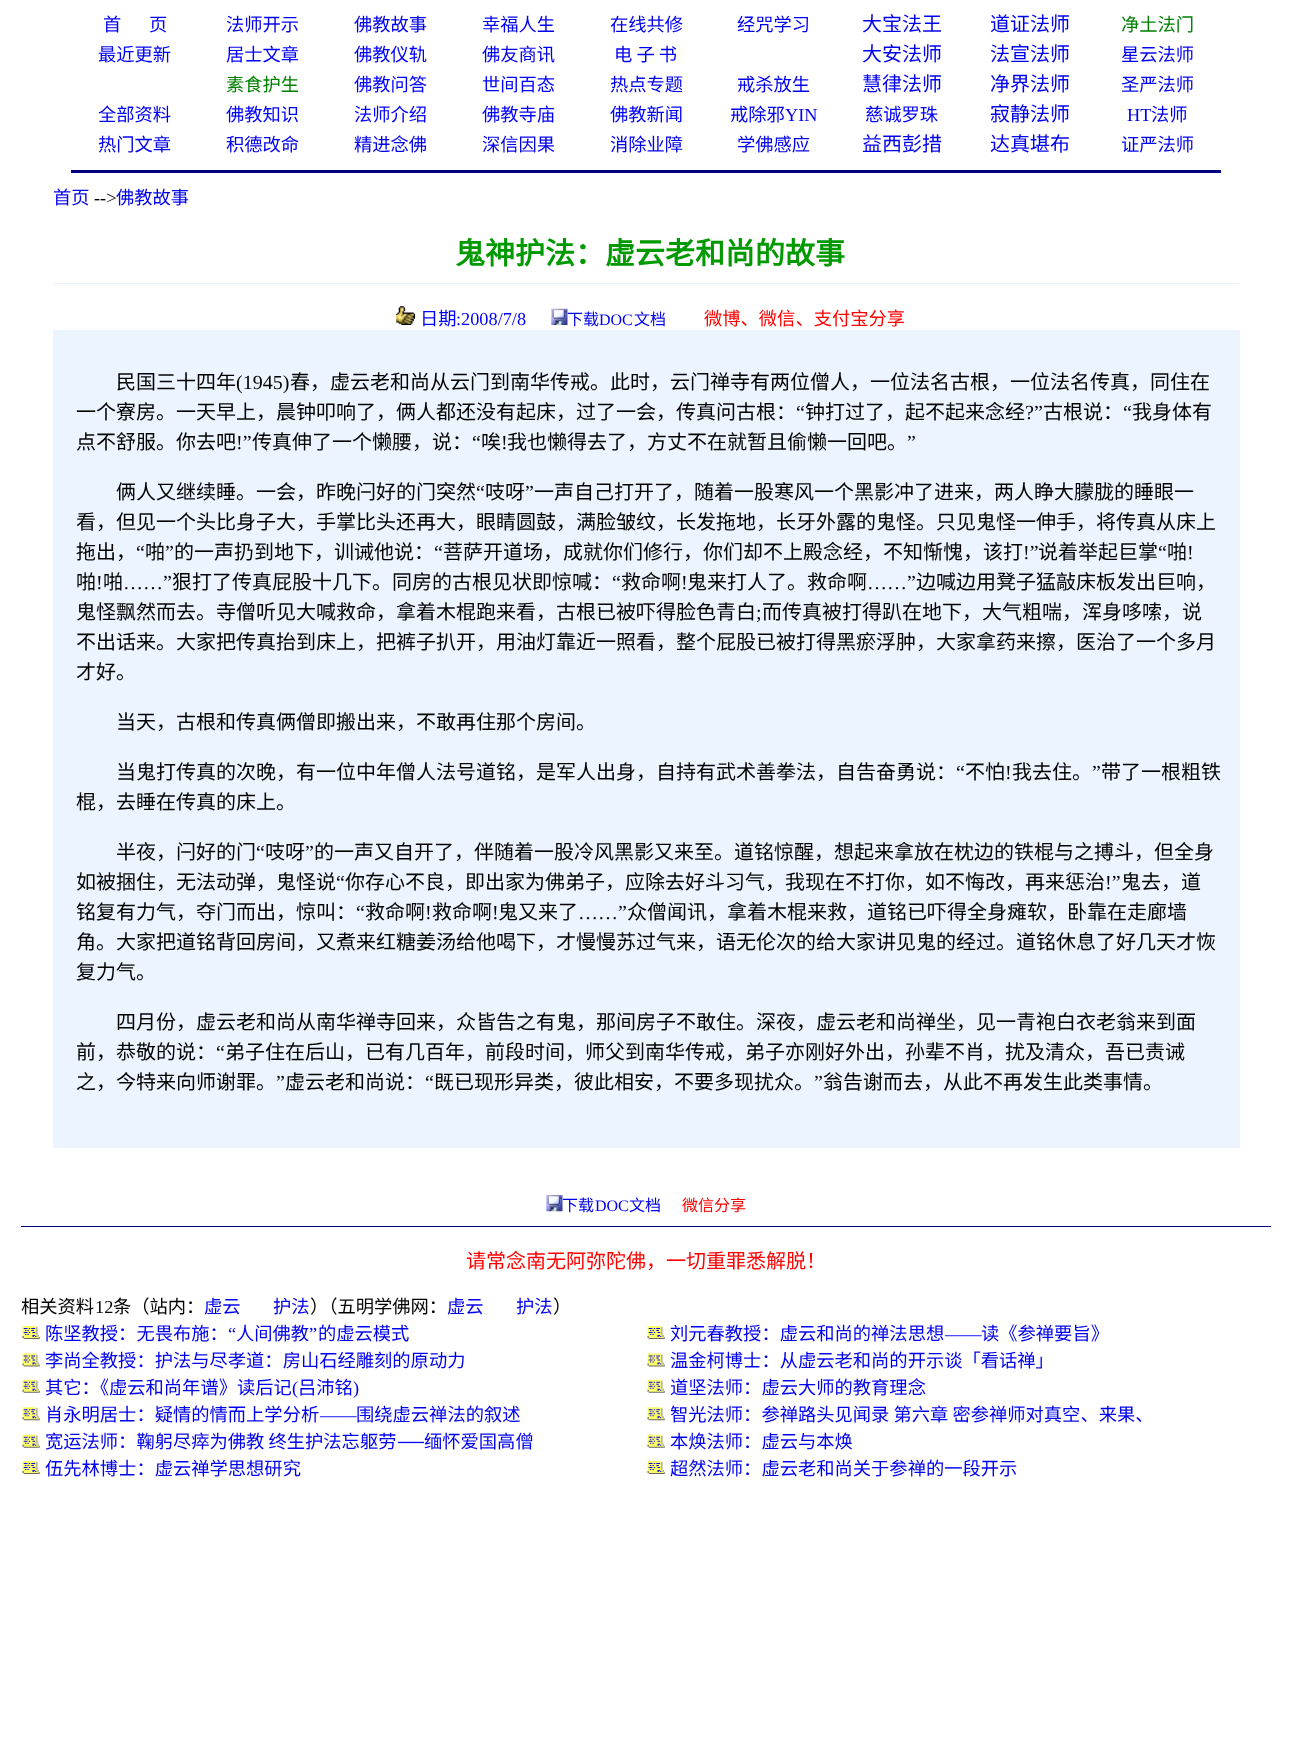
<svg xmlns="http://www.w3.org/2000/svg" width="1292" height="1759">
	<rect width="100%" height="100%" fill="#FFFFFF" />
	<g font-family="Noto Sans CJK SC" font-size="18.3" fill="#0000FF">
		<text x="103" y="31">首</text>
		<text x="149" y="31">页</text>
	</g>
	<g font-family="Noto Sans CJK SC" font-size="18.3" fill="#0000EE">
		<text x="226" y="31">法师开示</text>
		<text x="354" y="31">佛教故事</text>
		<text x="482" y="31">幸福人生</text>
		<text x="610" y="31">在线共修</text>
		<text x="737" y="31">经咒学习</text>
	</g>
	<g font-family="Noto Sans CJK SC" font-size="20" fill="#0000EE">
		<text x="862" y="31">大宝法王</text>
		<text x="990" y="31">道证法师</text>
	</g>
	<text x="1121" y="31" font-family="Noto Sans CJK SC" font-size="18.3" fill="#008000">净土法门</text>
	<g font-family="Noto Sans CJK SC" font-size="18.3" fill="#0000FF">
		<text x="98" y="61">最近更新</text>
		<text x="226" y="61">居士文章</text>
		<text x="354" y="61">佛教仪轨</text>
	</g>
	<g font-family="Noto Sans CJK SC" font-size="18.3" fill="#0000EE">
		<text x="482" y="61">佛友商讯</text>
		<text x="614" y="61">电 子 书</text>
	</g>
	<g font-family="Noto Sans CJK SC" font-size="20" fill="#0000EE">
		<text x="862" y="61">大安法师</text>
		<text x="990" y="61">法宣法师</text>
	</g>
	<text x="1121" y="61" font-family="Noto Sans CJK SC" font-size="18.3" fill="#0000EE">星云法师</text>
	<text x="226" y="91" font-family="Noto Sans CJK SC" font-size="18.3" fill="#008000">素食护生</text>
	<g font-family="Noto Sans CJK SC" font-size="18.3" fill="#0000FF">
		<text x="354" y="91">佛教问答</text>
		<text x="482" y="91">世间百态</text>
	</g>
	<g font-family="Noto Sans CJK SC" font-size="18.3" fill="#0000EE">
		<text x="610" y="91">热点专题</text>
		<text x="737" y="91">戒杀放生</text>
	</g>
	<g font-family="Noto Sans CJK SC" font-size="20" fill="#0000EE">
		<text x="862" y="91">慧律法师</text>
		<text x="990" y="91">净界法师</text>
	</g>
	<g font-family="Noto Sans CJK SC" font-size="18.3" fill="#0000EE">
		<text x="1121" y="91">圣严法师</text>
		<text x="98" y="121">全部资料</text>
	</g>
	<g font-family="Noto Sans CJK SC" font-size="18.3" fill="#0000FF">
		<text x="226" y="121">佛教知识</text>
		<text x="354" y="121">法师介绍</text>
		<text x="482" y="121">佛教寺庙</text>
		<text x="610" y="121">佛教新闻</text>
	</g>
	<text x="730" y="121" font-family="Noto Sans CJK SC" font-size="18.3" fill="#0000EE">戒除邪</text>
	<text x="785" y="121" font-family="Liberation Serif" font-size="18.3" fill="#0000EE">YIN</text>
	<text x="865" y="121" font-family="Noto Sans CJK SC" font-size="18.3" fill="#0000FF">慈诚罗珠</text>
	<text x="990" y="121" font-family="Noto Sans CJK SC" font-size="20" fill="#0000EE">寂静法师</text>
	<text x="1127" y="121" font-family="Liberation Serif" font-size="18.3" fill="#0000EE">HT</text>
	<g font-family="Noto Sans CJK SC" font-size="18.3" fill="#0000EE">
		<text x="1151" y="121">法师</text>
		<text x="98" y="151">热门文章</text>
		<text x="226" y="151">积德改命</text>
		<text x="354" y="151">精进念佛</text>
		<text x="482" y="151">深信因果</text>
		<text x="610" y="151">消除业障</text>
		<text x="737" y="151">学佛感应</text>
	</g>
	<g font-family="Noto Sans CJK SC" font-size="20" fill="#0000EE">
		<text x="862" y="151">益西彭措</text>
		<text x="990" y="151">达真堪布</text>
	</g>
	<text x="1121" y="151" font-family="Noto Sans CJK SC" font-size="18.3" fill="#0000EE">证严法师</text>
	<rect x="71" y="170" width="1150" height="3" fill="#000080" />
	<text x="53" y="204" font-family="Noto Sans CJK SC" font-size="18.3" fill="#0000EE">首页</text>
	<text x="94" y="204" font-family="Liberation Serif" font-size="18.3" fill="#000000">--&gt;</text>
	<text x="116" y="204" font-family="Noto Sans CJK SC" font-size="18.3" fill="#0000EE">佛教故事</text>
	<text x="455" y="264" font-family="Noto Sans CJK SC" font-size="30" font-weight="700" fill="#009900">鬼神护法：虚云老和尚的故事</text>
	<rect x="53" y="283" width="1187" height="1" fill="#ECF5FF" />
	<image x="396" y="306" width="19" height="19" href="assets/img1.png" />
	<text x="420" y="325" font-family="Noto Sans CJK SC" font-size="18.3" fill="#0000FF">日期</text>
	<text x="456" y="325" font-family="Liberation Serif" font-size="18.3" fill="#0000FF">:2008/7/8</text>
	<image x="551" y="308" width="17" height="17" href="assets/img2.png" />
	<text x="567" y="325" font-family="Noto Sans CJK SC" font-size="16" fill="#0000EE">下载</text>
	<text x="599" y="325" font-family="Liberation Serif" font-size="16" fill="#0000EE">DOC</text>
	<text x="634" y="325" font-family="Noto Sans CJK SC" font-size="16" fill="#0000EE">文档</text>
	<text x="704" y="325" font-family="Noto Sans CJK SC" font-size="18.3" fill="#FF0000">微博、微信、支付宝分享</text>
	<rect x="53" y="330" width="1187" height="818" fill="#ECF5FF" />
	<text x="116" y="389" font-family="Noto Sans CJK SC" font-size="20" fill="#000000">民国三十四年</text>
	<text x="236" y="389" font-family="Liberation Serif" font-size="20" fill="#000000">(1945)</text>
	<g font-family="Noto Sans CJK SC" font-size="20" fill="#000000">
		<text x="290" y="389">春，虚云老和尚从云门到南华传戒。此时，云门禅寺有两位僧人，一位法名古根，一位法名传真，同住在</text>
		<text x="76" y="419">一个寮房。一天早上，晨钟叩响了，俩人都还没有起床，过了一会，传真问古根：</text>
	</g>
	<text x="796" y="419" font-family="Liberation Serif" font-size="20" fill="#000000">“</text>
	<text x="805" y="419" font-family="Noto Sans CJK SC" font-size="20" fill="#000000">钟打过了，起不起来念经</text>
	<text x="1025" y="419" font-family="Liberation Serif" font-size="20" fill="#000000">?”</text>
	<text x="1043" y="419" font-family="Noto Sans CJK SC" font-size="20" fill="#000000">古根说：</text>
	<text x="1123" y="419" font-family="Liberation Serif" font-size="20" fill="#000000">“</text>
	<g font-family="Noto Sans CJK SC" font-size="20" fill="#000000">
		<text x="1132" y="419">我身体有</text>
		<text x="76" y="449">点不舒服。你去吧</text>
	</g>
	<text x="236" y="449" font-family="Liberation Serif" font-size="20" fill="#000000">!”</text>
	<text x="252" y="449" font-family="Noto Sans CJK SC" font-size="20" fill="#000000">传真伸了一个懒腰，说：</text>
	<text x="472" y="449" font-family="Liberation Serif" font-size="20" fill="#000000">“</text>
	<text x="481" y="449" font-family="Noto Sans CJK SC" font-size="20" fill="#000000">唉</text>
	<text x="501" y="449" font-family="Liberation Serif" font-size="20" fill="#000000">!</text>
	<text x="507" y="449" font-family="Noto Sans CJK SC" font-size="20" fill="#000000">我也懒得去了，方丈不在就暂且偷懒一回吧。</text>
	<text x="907" y="449" font-family="Liberation Serif" font-size="20" fill="#000000">”</text>
	<text x="116" y="499" font-family="Noto Sans CJK SC" font-size="20" fill="#000000">俩人又继续睡。一会，昨晚闩好的门突然</text>
	<text x="476" y="499" font-family="Liberation Serif" font-size="20" fill="#000000">“</text>
	<text x="485" y="499" font-family="Noto Sans CJK SC" font-size="20" fill="#000000">吱呀</text>
	<text x="525" y="499" font-family="Liberation Serif" font-size="20" fill="#000000">”</text>
	<g font-family="Noto Sans CJK SC" font-size="20" fill="#000000">
		<text x="534" y="499">一声自己打开了，随着一股寒风一个黑影冲了进来，两人睁大朦胧的睡眼一</text>
		<text x="76" y="529">看，但见一个头比身子大，手掌比头还再大，眼睛圆鼓，满脸皱纹，长发拖地，长牙外露的鬼怪。只见鬼怪一伸手，将传真从床上</text>
		<text x="76" y="559">拖出，</text>
	</g>
	<text x="136" y="559" font-family="Liberation Serif" font-size="20" fill="#000000">“</text>
	<text x="145" y="559" font-family="Noto Sans CJK SC" font-size="20" fill="#000000">啪</text>
	<text x="165" y="559" font-family="Liberation Serif" font-size="20" fill="#000000">”</text>
	<text x="174" y="559" font-family="Noto Sans CJK SC" font-size="20" fill="#000000">的一声扔到地下，训诫他说：</text>
	<text x="434" y="559" font-family="Liberation Serif" font-size="20" fill="#000000">“</text>
	<text x="443" y="559" font-family="Noto Sans CJK SC" font-size="20" fill="#000000">菩萨开道场，成就你们修行，你们却不上殿念经，不知惭愧，该打</text>
	<text x="1023" y="559" font-family="Liberation Serif" font-size="20" fill="#000000">!”</text>
	<text x="1038" y="559" font-family="Noto Sans CJK SC" font-size="20" fill="#000000">说着举起巨掌</text>
	<text x="1158" y="559" font-family="Liberation Serif" font-size="20" fill="#000000">“</text>
	<text x="1167" y="559" font-family="Noto Sans CJK SC" font-size="20" fill="#000000">啪</text>
	<text x="1187" y="559" font-family="Liberation Serif" font-size="20" fill="#000000">!</text>
	<text x="76" y="589" font-family="Noto Sans CJK SC" font-size="20" fill="#000000">啪</text>
	<text x="96" y="589" font-family="Liberation Serif" font-size="20" fill="#000000">!</text>
	<text x="103" y="589" font-family="Noto Sans CJK SC" font-size="20" fill="#000000">啪</text>
	<text x="123" y="589" font-family="Liberation Serif" font-size="20" fill="#000000">……”</text>
	<text x="172" y="589" font-family="Noto Sans CJK SC" font-size="20" fill="#000000">狠打了传真屁股十几下。同房的古根见状即惊喊：</text>
	<text x="612" y="589" font-family="Liberation Serif" font-size="20" fill="#000000">“</text>
	<text x="621" y="589" font-family="Noto Sans CJK SC" font-size="20" fill="#000000">救命啊</text>
	<text x="681" y="589" font-family="Liberation Serif" font-size="20" fill="#000000">!</text>
	<text x="687" y="589" font-family="Noto Sans CJK SC" font-size="20" fill="#000000">鬼来打人了。救命啊</text>
	<text x="867" y="589" font-family="Liberation Serif" font-size="20" fill="#000000">……”</text>
	<g font-family="Noto Sans CJK SC" font-size="20" fill="#000000">
		<text x="916" y="589">边喊边用凳子猛敲床板发出巨响，</text>
		<text x="76" y="619">鬼怪飘然而去。寺僧听见大喊救命，拿着木棍跑来看，古根已被吓得脸色青白</text>
	</g>
	<text x="756" y="619" font-family="Liberation Serif" font-size="20" fill="#000000">;</text>
	<g font-family="Noto Sans CJK SC" font-size="20" fill="#000000">
		<text x="762" y="619">而传真被打得趴在地下，大气粗喘，浑身哆嗦，说</text>
		<text x="76" y="649">不出话来。大家把传真抬到床上，把裤子扒开，用油灯靠近一照看，整个屁股已被打得黑瘀浮肿，大家拿药来擦，医治了一个多月</text>
		<text x="76" y="679">才好。</text>
		<text x="116" y="729">当天，古根和传真俩僧即搬出来，不敢再住那个房间。</text>
		<text x="116" y="779">当鬼打传真的次晚，有一位中年僧人法号道铭，是军人出身，自持有武术善拳法，自告奋勇说：</text>
	</g>
	<text x="956" y="779" font-family="Liberation Serif" font-size="20" fill="#000000">“</text>
	<text x="965" y="779" font-family="Noto Sans CJK SC" font-size="20" fill="#000000">不怕</text>
	<text x="1005" y="779" font-family="Liberation Serif" font-size="20" fill="#000000">!</text>
	<text x="1012" y="779" font-family="Noto Sans CJK SC" font-size="20" fill="#000000">我去住。</text>
	<text x="1092" y="779" font-family="Liberation Serif" font-size="20" fill="#000000">”</text>
	<g font-family="Noto Sans CJK SC" font-size="20" fill="#000000">
		<text x="1101" y="779">带了一根粗铁</text>
		<text x="76" y="809">棍，去睡在传真的床上。</text>
		<text x="116" y="859">半夜，闩好的门</text>
	</g>
	<text x="256" y="859" font-family="Liberation Serif" font-size="20" fill="#000000">“</text>
	<text x="265" y="859" font-family="Noto Sans CJK SC" font-size="20" fill="#000000">吱呀</text>
	<text x="305" y="859" font-family="Liberation Serif" font-size="20" fill="#000000">”</text>
	<g font-family="Noto Sans CJK SC" font-size="20" fill="#000000">
		<text x="314" y="859">的一声又自开了，伴随着一股冷风黑影又来至。道铭惊醒，想起来拿放在枕边的铁棍与之搏斗，但全身</text>
		<text x="76" y="889">如被捆住，无法动弹，鬼怪说</text>
	</g>
	<text x="336" y="889" font-family="Liberation Serif" font-size="20" fill="#000000">“</text>
	<text x="345" y="889" font-family="Noto Sans CJK SC" font-size="20" fill="#000000">你存心不良，即出家为佛弟子，应除去好斗习气，我现在不打你，如不悔改，再来惩治</text>
	<text x="1105" y="889" font-family="Liberation Serif" font-size="20" fill="#000000">!”</text>
	<g font-family="Noto Sans CJK SC" font-size="20" fill="#000000">
		<text x="1121" y="889">鬼去，道</text>
		<text x="76" y="919">铭复有力气，夺门而出，惊叫：</text>
	</g>
	<text x="356" y="919" font-family="Liberation Serif" font-size="20" fill="#000000">“</text>
	<text x="365" y="919" font-family="Noto Sans CJK SC" font-size="20" fill="#000000">救命啊</text>
	<text x="425" y="919" font-family="Liberation Serif" font-size="20" fill="#000000">!</text>
	<text x="432" y="919" font-family="Noto Sans CJK SC" font-size="20" fill="#000000">救命啊</text>
	<text x="492" y="919" font-family="Liberation Serif" font-size="20" fill="#000000">!</text>
	<text x="498" y="919" font-family="Noto Sans CJK SC" font-size="20" fill="#000000">鬼又来了</text>
	<text x="578" y="919" font-family="Liberation Serif" font-size="20" fill="#000000">……”</text>
	<g font-family="Noto Sans CJK SC" font-size="20" fill="#000000">
		<text x="627" y="919">众僧闻讯，拿着木棍来救，道铭已吓得全身瘫软，卧靠在走廊墙</text>
		<text x="76" y="949">角。大家把道铭背回房间，又煮来红糖姜汤给他喝下，才慢慢苏过气来，语无伦次的给大家讲见鬼的经过。道铭休息了好几天才恢</text>
		<text x="76" y="979">复力气。</text>
		<text x="116" y="1029">四月份，虚云老和尚从南华禅寺回来，众皆告之有鬼，那间房子不敢住。深夜，虚云老和尚禅坐，见一青袍白衣老翁来到面</text>
		<text x="76" y="1059">前，恭敬的说：</text>
	</g>
	<text x="216" y="1059" font-family="Liberation Serif" font-size="20" fill="#000000">“</text>
	<g font-family="Noto Sans CJK SC" font-size="20" fill="#000000">
		<text x="225" y="1059">弟子住在后山，已有几百年，前段时间，师父到南华传戒，弟子亦刚好外出，孙辈不肖，扰及清众，吾已责诫</text>
		<text x="76" y="1089">之，今特来向师谢罪。</text>
	</g>
	<text x="276" y="1089" font-family="Liberation Serif" font-size="20" fill="#000000">”</text>
	<text x="285" y="1089" font-family="Noto Sans CJK SC" font-size="20" fill="#000000">虚云老和尚说：</text>
	<text x="425" y="1089" font-family="Liberation Serif" font-size="20" fill="#000000">“</text>
	<text x="434" y="1089" font-family="Noto Sans CJK SC" font-size="20" fill="#000000">既已现形异类，彼此相安，不要多现扰众。</text>
	<text x="814" y="1089" font-family="Liberation Serif" font-size="20" fill="#000000">”</text>
	<text x="823" y="1089" font-family="Noto Sans CJK SC" font-size="20" fill="#000000">翁告谢而去，从此不再发生此类事情。</text>
	<image x="546" y="1195" width="17" height="17" href="assets/img3.png" />
	<text x="562" y="1211" font-family="Noto Sans CJK SC" font-size="16" fill="#0000EE">下载</text>
	<text x="595" y="1211" font-family="Liberation Serif" font-size="16" fill="#0000EE">DOC</text>
	<text x="629" y="1211" font-family="Noto Sans CJK SC" font-size="16" fill="#0000EE">文档</text>
	<text x="682" y="1211" font-family="Noto Sans CJK SC" font-size="16" fill="#FF0000">微信分享</text>
	<rect x="21" y="1226" width="1250" height="1" fill="#000080" />
	<text x="466" y="1268" font-family="Noto Sans CJK SC" font-size="20" fill="#FF0000">请常念南无阿弥陀佛，一切重罪悉解脱！</text>
	<text x="21" y="1313" font-family="Noto Sans CJK SC" font-size="18.3" fill="#000000">相关资料</text>
	<text x="95" y="1313" font-family="Liberation Serif" font-size="18.3" fill="#000000">12</text>
	<text x="113" y="1313" font-family="Noto Sans CJK SC" font-size="18.3" fill="#000000">条（站内：</text>
	<g font-family="Noto Sans CJK SC" font-size="18.3" fill="#0000EE">
		<text x="204" y="1313">虚云</text>
		<text x="273" y="1313">护法</text>
	</g>
	<text x="310" y="1313" font-family="Noto Sans CJK SC" font-size="18.3" fill="#000000">）（五明学佛网：</text>
	<g font-family="Noto Sans CJK SC" font-size="18.3" fill="#0000EE">
		<text x="447" y="1313">虚云</text>
		<text x="516" y="1313">护法</text>
	</g>
	<text x="553" y="1313" font-family="Noto Sans CJK SC" font-size="18.3" fill="#000000">）</text>
	<image x="22" y="1326" width="18" height="13" href="assets/img4.png" />
	<text x="45" y="1340" font-family="Noto Sans CJK SC" font-size="18.3" fill="#0000EE">陈坚教授：无畏布施：</text>
	<text x="228" y="1340" font-family="Liberation Serif" font-size="18.3" fill="#0000EE">“</text>
	<text x="236" y="1340" font-family="Noto Sans CJK SC" font-size="18.3" fill="#0000EE">人间佛教</text>
	<text x="309" y="1340" font-family="Liberation Serif" font-size="18.3" fill="#0000EE">”</text>
	<text x="318" y="1340" font-family="Noto Sans CJK SC" font-size="18.3" fill="#0000EE">的虚云模式</text>
	<image x="647" y="1326" width="18" height="13" href="assets/img4.png" />
	<text x="670" y="1340" font-family="Noto Sans CJK SC" font-size="18.3" fill="#0000EE">刘元春教授：虚云和尚的禅法思想</text>
	<text x="945" y="1340" font-family="Liberation Serif" font-size="18.3" fill="#0000EE">——</text>
	<text x="981" y="1340" font-family="Noto Sans CJK SC" font-size="18.3" fill="#0000EE">读《参禅要旨》</text>
	<image x="22" y="1353" width="18" height="14" href="assets/img5.png" />
	<text x="45" y="1367" font-family="Noto Sans CJK SC" font-size="18.3" fill="#0000EE">李尚全教授：护法与尽孝道：房山石经雕刻的原动力</text>
	<image x="647" y="1353" width="18" height="14" href="assets/img5.png" />
	<text x="670" y="1367" font-family="Noto Sans CJK SC" font-size="18.3" fill="#0000EE">温金柯博士：从虚云老和尚的开示谈「看话禅」</text>
	<image x="22" y="1379" width="18" height="14" href="assets/img6.png" />
	<text x="45" y="1394" font-family="Noto Sans CJK SC" font-size="18.3" fill="#0000EE">其它：《虚云和尚年谱》读后记</text>
	<text x="292" y="1394" font-family="Liberation Serif" font-size="18.3" fill="#0000EE">(</text>
	<text x="298" y="1394" font-family="Noto Sans CJK SC" font-size="18.3" fill="#0000EE">吕沛铭</text>
	<text x="353" y="1394" font-family="Liberation Serif" font-size="18.3" fill="#0000EE">)</text>
	<image x="647" y="1379" width="18" height="14" href="assets/img6.png" />
	<text x="670" y="1394" font-family="Noto Sans CJK SC" font-size="18.3" fill="#0000EE">道坚法师：虚云大师的教育理念</text>
	<image x="22" y="1407" width="18" height="14" href="assets/img7.png" />
	<text x="45" y="1421" font-family="Noto Sans CJK SC" font-size="18.3" fill="#0000EE">肖永明居士：疑情的情而上学分析</text>
	<text x="320" y="1421" font-family="Liberation Serif" font-size="18.3" fill="#0000EE">——</text>
	<text x="356" y="1421" font-family="Noto Sans CJK SC" font-size="18.3" fill="#0000EE">围绕虚云禅法的叙述</text>
	<image x="647" y="1407" width="18" height="14" href="assets/img7.png" />
	<text x="670" y="1421" font-family="Noto Sans CJK SC" font-size="18.3" fill="#0000EE">智光法师：参禅路头见闻录 第六章 密参禅师对真空、来果、</text>
	<image x="22" y="1434" width="18" height="14" href="assets/img6.png" />
	<text x="45" y="1448" font-family="Noto Sans CJK SC" font-size="18.3" fill="#0000EE">宽运法师：鞠躬尽瘁为佛教 终生护法忘躯劳</text>
	<text x="398" y="1448" font-family="Liberation Serif" font-size="18.3" fill="#0000EE">──</text>
	<text x="424" y="1448" font-family="Noto Sans CJK SC" font-size="18.3" fill="#0000EE">缅怀爱国高僧</text>
	<image x="647" y="1434" width="18" height="14" href="assets/img6.png" />
	<text x="670" y="1448" font-family="Noto Sans CJK SC" font-size="18.3" fill="#0000EE">本焕法师：虚云与本焕</text>
	<image x="22" y="1461" width="18" height="13" href="assets/img4.png" />
	<text x="45" y="1475" font-family="Noto Sans CJK SC" font-size="18.3" fill="#0000EE">伍先林博士：虚云禅学思想研究</text>
	<image x="647" y="1461" width="18" height="13" href="assets/img4.png" />
	<text x="670" y="1475" font-family="Noto Sans CJK SC" font-size="18.3" fill="#0000EE">超然法师：虚云老和尚关于参禅的一段开示</text>
</svg>
